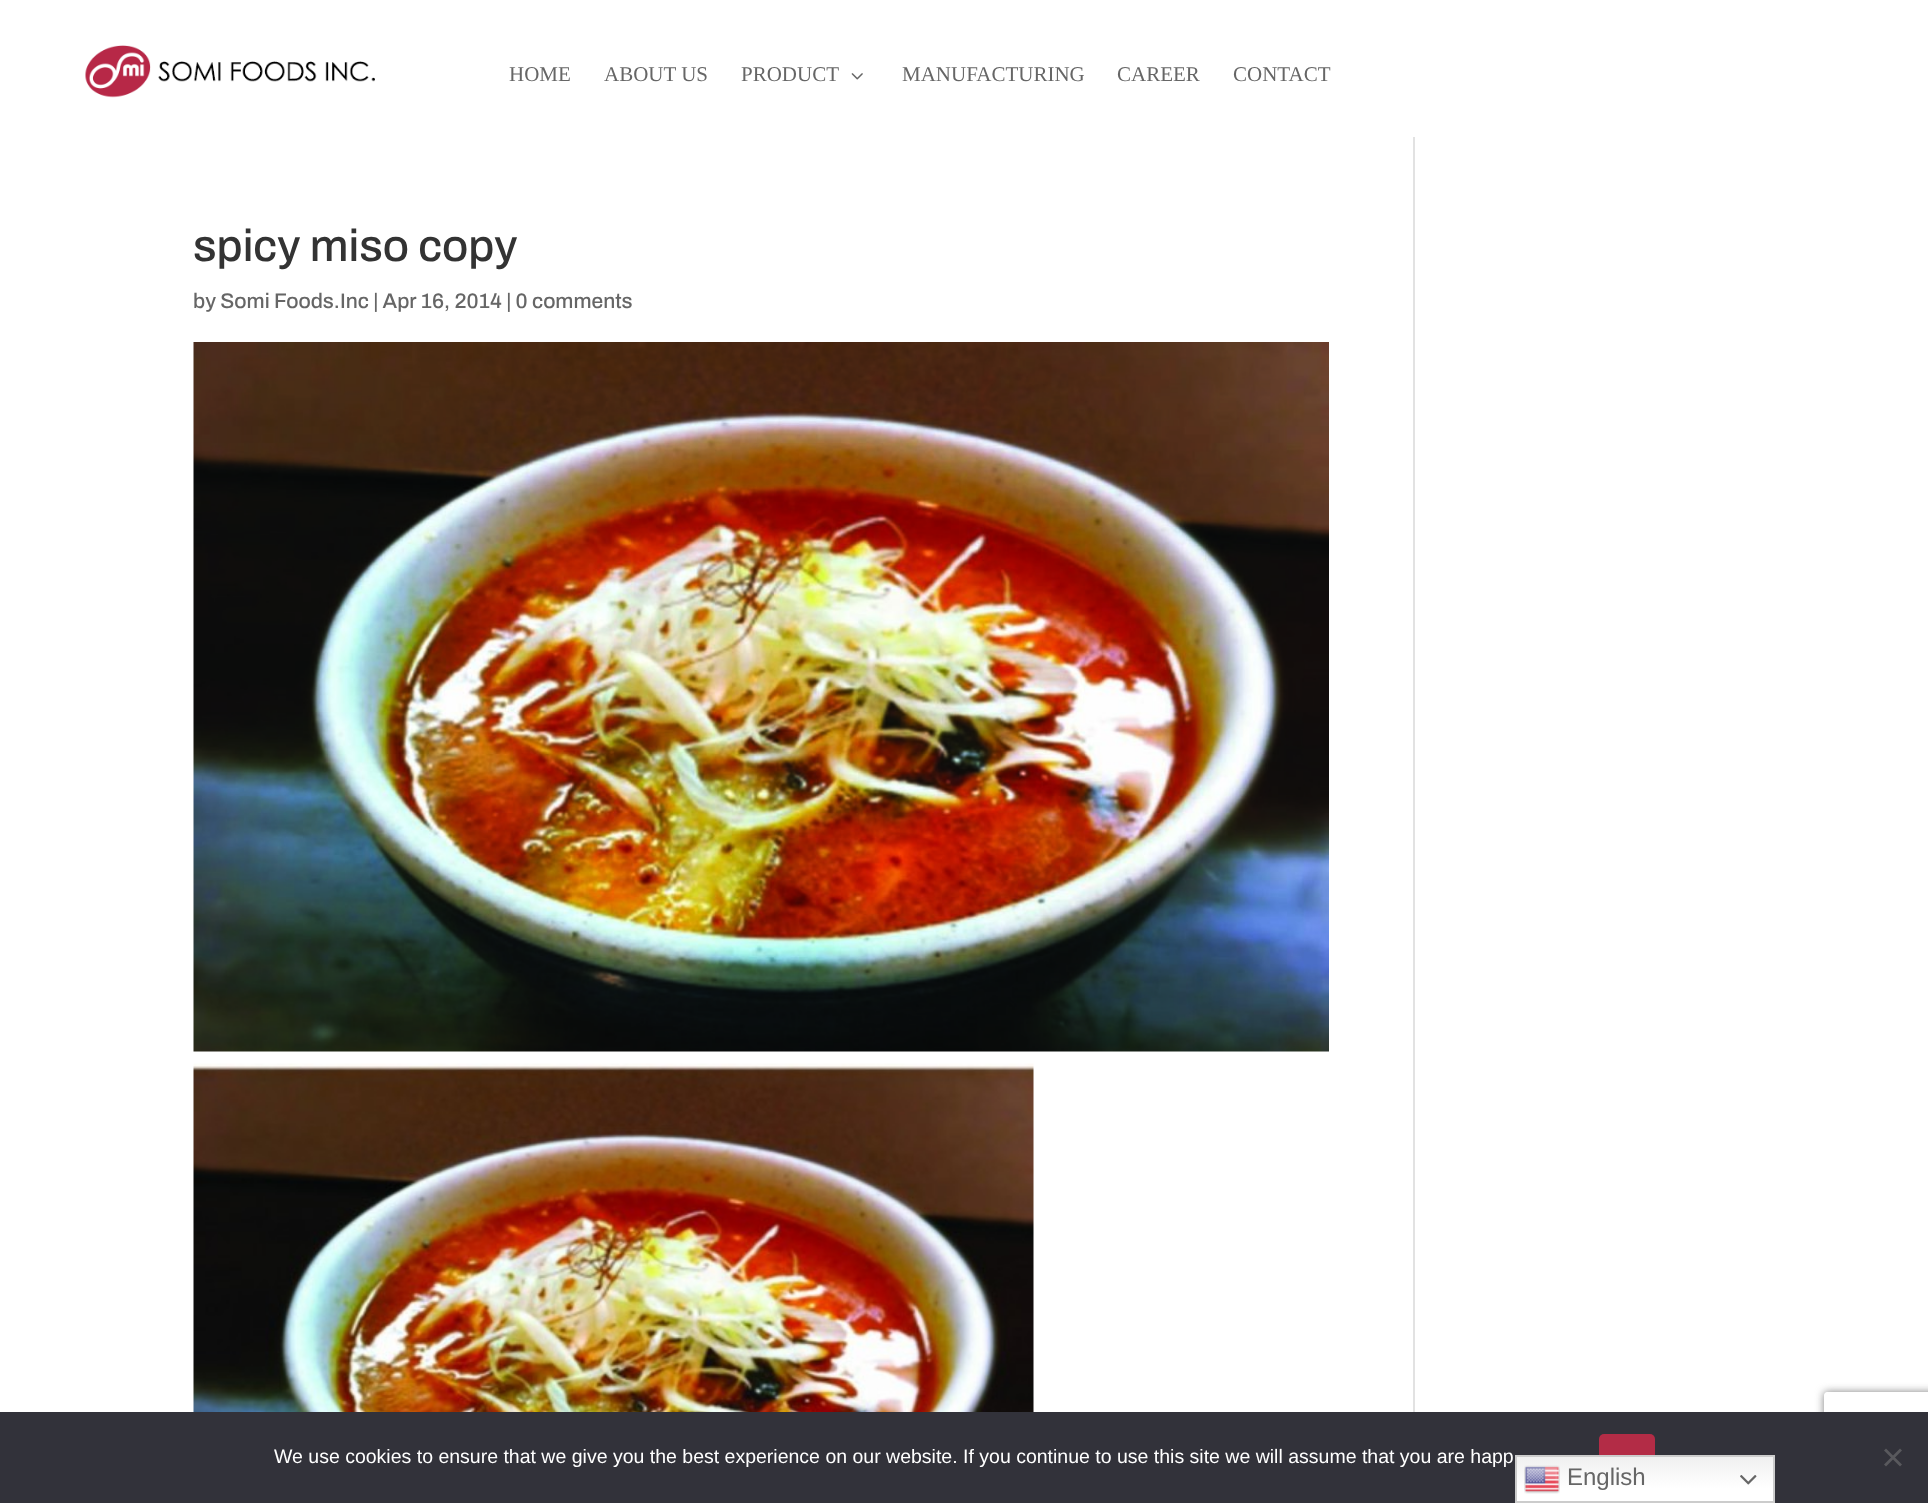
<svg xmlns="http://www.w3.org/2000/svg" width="1928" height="1503">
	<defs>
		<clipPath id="clip1"><path d="M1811 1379H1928V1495H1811ZM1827 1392H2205C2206.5 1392 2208 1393.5 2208 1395V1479C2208 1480.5 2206.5 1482 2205 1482H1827C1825.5 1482 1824 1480.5 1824 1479V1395C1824 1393.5 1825.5 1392 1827 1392Z" clip-rule="evenodd" /></clipPath>
		<linearGradient id="g1" gradientUnits="userSpaceOnUse" x1="1645" y1="1455" x2="1645" y2="1503"><stop offset="0" stop-color="#EFEFEF" /><stop offset="0.7" stop-color="#FFFFFF" /></linearGradient>
	</defs>
	<rect width="100%" height="100%" fill="#FFFFFF" />
	<image x="85" y="45" width="290" height="53" href="assets/img1.png" />
	<g font-family="Liberation Serif" font-size="21" fill="#666666">
		<text x="509" y="81">HOME</text>
		<text x="604" y="81">ABOUT US</text>
		<text x="741" y="81">PRODUCT</text>
	</g>
	<image x="851" y="73" width="12" height="7" href="assets/img2.png" />
	<g font-family="Liberation Serif" font-size="21" fill="#666666">
		<text x="902" y="81">MANUFACTURING</text>
		<text x="1117" y="81">CAREER</text>
		<text x="1233" y="81">CONTACT</text>
	</g>
	<text x="193" y="261" font-family="Archivo" font-size="45" font-weight="600" fill="#333333">spicy miso copy</text>
	<text x="193" y="308" font-family="Archivo" font-size="21" font-weight="600" fill="#666666">by Somi Foods.Inc | Apr 16, 2014 | 0 comments</text>
	<image x="193" y="342" width="1136" height="710" href="assets/img3.png" />
	<image x="193" y="1063" width="841" height="349" href="assets/img4.png" />
	<rect x="1413" y="137" width="2" height="1275" fill="#E2E2E2" />
	<g clip-path="url(#clip1)">
		<rect x="1824" y="1392" width="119" height="90" rx="3" fill="#808080" filter="blur(4px)" />
	</g>
	<rect x="0" y="1412" width="1928" height="91" fill="#32323A" />
	<text x="274" y="1463" font-family="Liberation Sans" font-size="19.5" fill="#FFFFFF">We use cookies to ensure that we give you the best experience on our website. If you continue to use this site we will assume that you are happ</text>
	<rect x="1599" y="1434" width="56" height="45" rx="5" fill="#B32C46" />
	<path d="M1900 1448.5L1902 1450.5L1886 1466.5L1884 1464.5Z" fill="#59595D" />
	<path d="M1884 1450.5L1886 1448.5L1902 1464.5L1900 1466.5Z" fill="#59595D" />
	<rect x="1517" y="1457" width="256" height="44" fill="url(#g1)" />
	<rect x="1516" y="1456" width="258" height="46" fill="none" stroke="#CCCCCC" stroke-width="2" />
	<image x="1524" y="1465" width="36" height="29" href="assets/img5.png" />
	<text x="1567" y="1485" font-family="Liberation Sans" font-size="24" fill="#666666">English</text>
	<image x="1740" y="1475" width="17" height="10" href="assets/img6.png" />
</svg>
